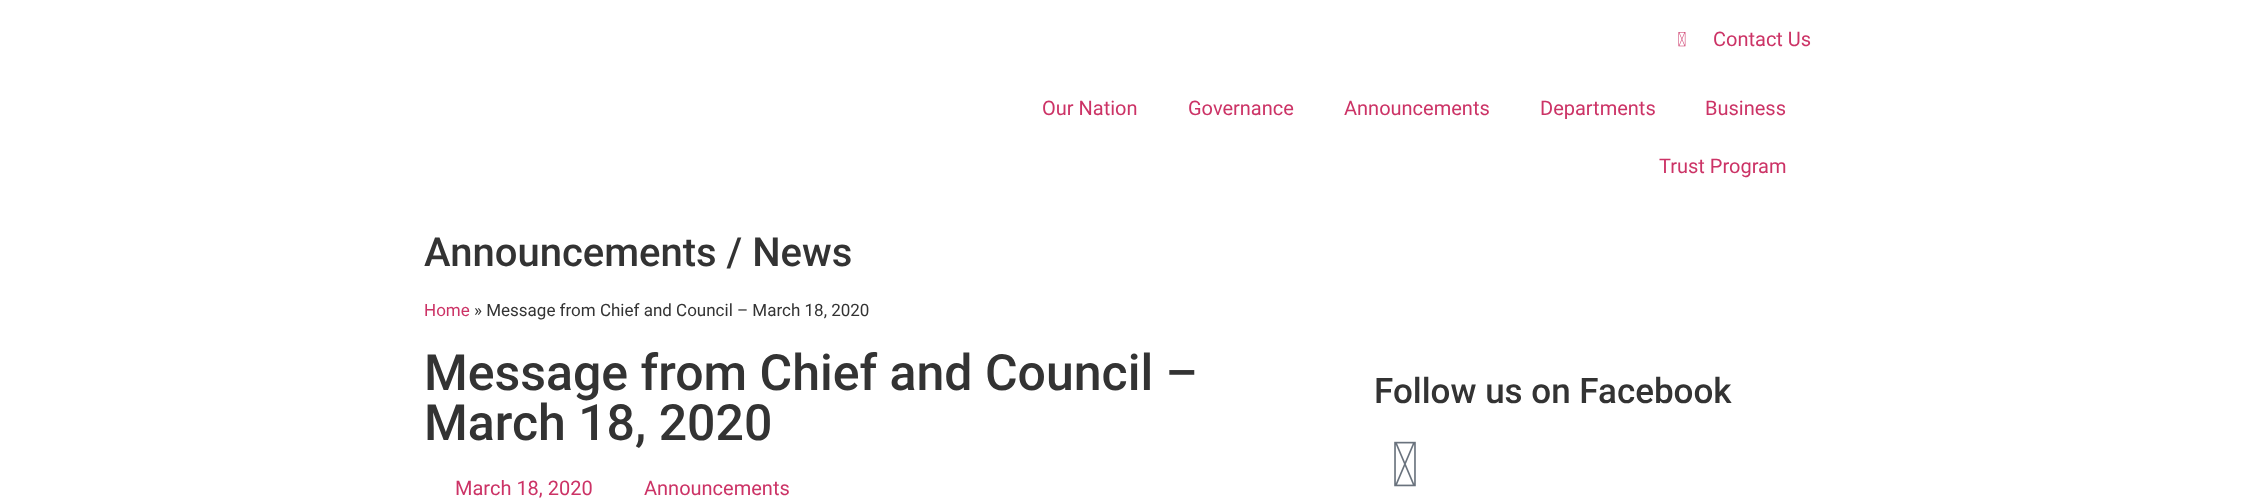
<svg xmlns="http://www.w3.org/2000/svg" width="2247" height="503">
	<rect width="100%" height="100%" fill="#FFFFFF" />
	<image x="1678" y="32" width="8" height="15" href="assets/img1.png" />
	<g font-family="Roboto" font-size="20" fill="#CC3366">
		<text x="1713" y="46">Contact Us</text>
		<text x="1042" y="115">Our Nation</text>
		<text x="1188" y="115">Governance</text>
		<text x="1344" y="115">Announcements</text>
		<text x="1540" y="115">Departments</text>
		<text x="1705" y="115">Business</text>
		<text x="1659" y="173">Trust Program</text>
	</g>
	<text x="424" y="266" font-family="Roboto" font-size="40" font-weight="500" fill="#333333">Announcements / News</text>
	<text x="424" y="316" font-family="Roboto" font-size="17" fill="#CC3366">Home</text>
	<text x="474" y="316" font-family="Roboto" font-size="17" fill="#333333">» Message from Chief and Council – March 18, 2020</text>
	<g font-family="Roboto" font-size="50" font-weight="500" fill="#333333">
		<text x="424" y="390">Message from Chief and Council –</text>
		<text x="424" y="440">March 18, 2020</text>
	</g>
	<g font-family="Roboto" font-size="20" fill="#CC3366">
		<text x="455" y="495">March 18, 2020</text>
		<text x="644" y="495">Announcements</text>
	</g>
	<text x="1374" y="403" font-family="Roboto" font-size="35" font-weight="500" fill="#333333">Follow us on Facebook</text>
	<image x="1394" y="441" width="22" height="46" href="assets/img2.png" />
</svg>
